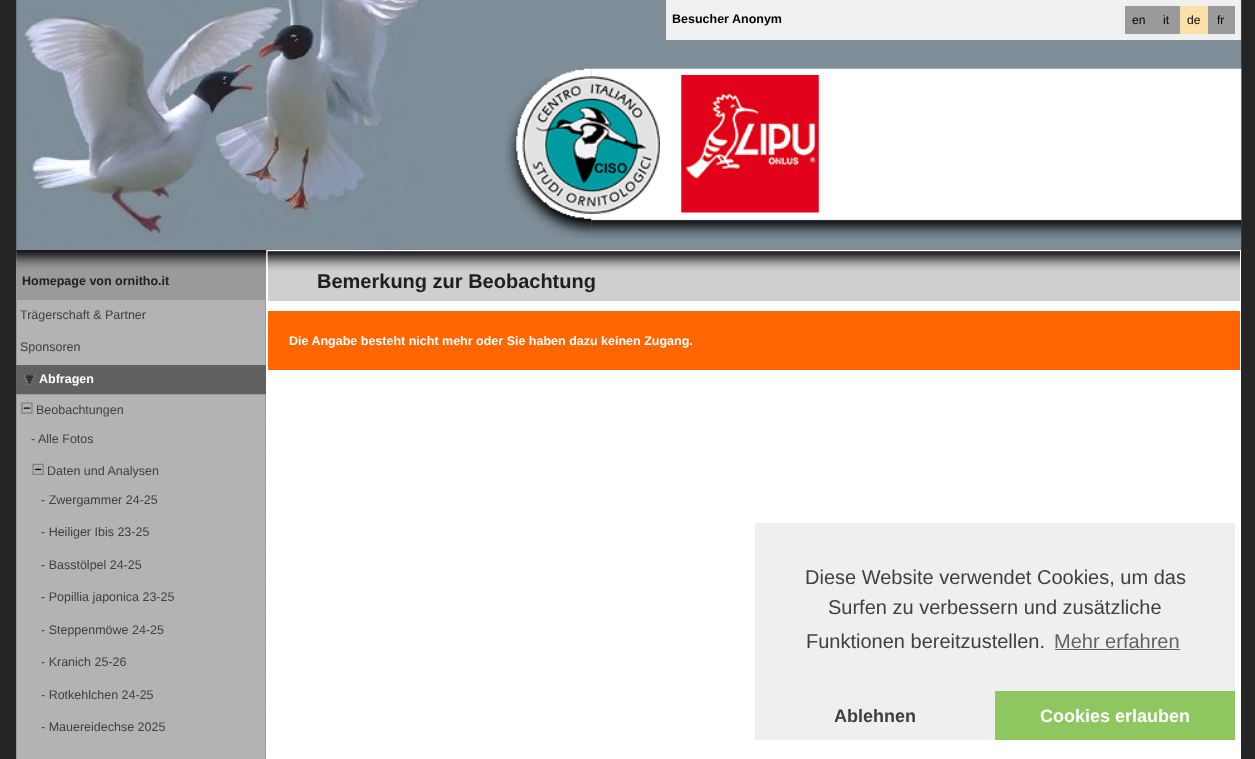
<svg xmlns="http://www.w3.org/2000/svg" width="1255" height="759">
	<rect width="100%" height="100%" fill="#252525" />
	<image x="16" y="0" width="1226" height="250" href="assets/img1.png" />
	<rect x="666" y="0" width="575" height="40" fill="#F0F0F0" />
	<text x="672" y="23" font-family="Liberation Sans" font-size="12.5" font-weight="700" fill="#000000">Besucher Anonym</text>
	<rect x="1125" y="6" width="55" height="28" fill="#9A9A9A" />
	<g font-family="Liberation Sans" font-size="12" fill="#000000">
		<text x="1132" y="24">en</text>
		<text x="1163" y="24">it</text>
	</g>
	<rect x="1180" y="6" width="28" height="28" fill="#FFE0AA" />
	<text x="1187" y="24" font-family="Liberation Sans" font-size="12" fill="#000000">de</text>
	<rect x="1208" y="6" width="27" height="28" fill="#9A9A9A" />
	<text x="1217" y="24" font-family="Liberation Sans" font-size="12" fill="#000000">fr</text>
	<image x="505" y="68" width="87" height="171" href="assets/img2.png" />
	<image x="591" y="68" width="651" height="171" href="assets/img3.png" />
	<image x="522" y="76" width="138" height="138" href="assets/img4.png" />
	<image x="681" y="75" width="138" height="138" href="assets/img5.png" />
	<rect x="266" y="250" width="975" height="509" fill="#FFFFFF" />
	<rect x="16" y="250" width="250" height="50" fill="#9A9A9A" />
	<image x="16" y="250" width="251" height="19" href="assets/img6.png" />
	<text x="22" y="285" font-family="Liberation Sans" font-size="12.5" font-weight="700" fill="#202020">Homepage von ornitho.it</text>
	<rect x="17" y="300" width="248" height="64" fill="#B3B3B3" />
	<rect x="265" y="300" width="1" height="65" fill="#9A9A9A" />
	<rect x="16" y="331" width="250" height="1" fill="#B3B3B3" />
	<rect x="16" y="300" width="1" height="33" fill="#9A9A9A" />
	<text x="20" y="319" font-family="Liberation Sans" font-size="12.5" fill="#404040">Trägerschaft &amp; Partner</text>
	<rect x="16" y="364" width="250" height="1" fill="#B3B3B3" />
	<rect x="16" y="333" width="1" height="32" fill="#9A9A9A" />
	<text x="20" y="351" font-family="Liberation Sans" font-size="12.5" fill="#404040">Sponsoren</text>
	<rect x="16" y="365" width="250" height="29" fill="#616161" />
	<rect x="16" y="394" width="250" height="1" fill="#9A9A9A" />
	<image x="23" y="375" width="13" height="11" href="assets/img7.png" />
	<text x="39" y="383" font-family="Liberation Sans" font-size="12.5" font-weight="700" fill="#FFFFFF">Abfragen</text>
	<rect x="17" y="395" width="248" height="28" fill="#B3B3B3" />
	<rect x="265" y="395" width="1" height="364" fill="#9A9A9A" />
	<rect x="16" y="423" width="250" height="1" fill="#B3B3B3" />
	<rect x="16" y="395" width="1" height="29" fill="#9A9A9A" />
	<image x="21" y="402" width="12" height="12" href="assets/img8.png" />
	<text x="36" y="414" font-family="Liberation Sans" font-size="12.5" fill="#404040">Beobachtungen</text>
	<rect x="17" y="424" width="248" height="31" fill="#B3B3B3" />
	<rect x="16" y="455" width="250" height="1" fill="#B3B3B3" />
	<rect x="16" y="424" width="1" height="32" fill="#9A9A9A" />
	<text x="31" y="443" font-family="Liberation Sans" font-size="12.5" fill="#404040">- Alle Fotos</text>
	<rect x="17" y="456" width="248" height="28" fill="#B3B3B3" />
	<rect x="16" y="484" width="250" height="1" fill="#B3B3B3" />
	<rect x="16" y="456" width="1" height="29" fill="#9A9A9A" />
	<image x="32" y="463" width="12" height="12" href="assets/img9.png" />
	<text x="47" y="475" font-family="Liberation Sans" font-size="12.5" fill="#404040">Daten und Analysen</text>
	<rect x="17" y="485" width="248" height="64" fill="#B3B3B3" />
	<rect x="16" y="516" width="250" height="1" fill="#B3B3B3" />
	<rect x="16" y="485" width="1" height="33" fill="#9A9A9A" />
	<text x="41" y="504" font-family="Liberation Sans" font-size="12.5" fill="#404040">- Zwergammer 24-25</text>
	<rect x="16" y="549" width="250" height="1" fill="#B3B3B3" />
	<rect x="16" y="518" width="1" height="32" fill="#9A9A9A" />
	<text x="41" y="536" font-family="Liberation Sans" font-size="12.5" fill="#404040">- Heiliger Ibis 23-25</text>
	<rect x="17" y="550" width="248" height="64" fill="#B3B3B3" />
	<rect x="16" y="581" width="250" height="1" fill="#B3B3B3" />
	<rect x="16" y="550" width="1" height="33" fill="#9A9A9A" />
	<text x="41" y="569" font-family="Liberation Sans" font-size="12.5" fill="#404040">- Basstölpel 24-25</text>
	<rect x="16" y="614" width="250" height="1" fill="#B3B3B3" />
	<rect x="16" y="583" width="1" height="32" fill="#9A9A9A" />
	<text x="41" y="601" font-family="Liberation Sans" font-size="12.5" fill="#404040">- Popillia japonica 23-25</text>
	<rect x="17" y="615" width="248" height="64" fill="#B3B3B3" />
	<rect x="16" y="646" width="250" height="1" fill="#B3B3B3" />
	<rect x="16" y="615" width="1" height="33" fill="#9A9A9A" />
	<text x="41" y="634" font-family="Liberation Sans" font-size="12.5" fill="#404040">- Steppenmöwe 24-25</text>
	<rect x="16" y="679" width="250" height="1" fill="#B3B3B3" />
	<rect x="16" y="648" width="1" height="32" fill="#9A9A9A" />
	<text x="41" y="666" font-family="Liberation Sans" font-size="12.5" fill="#404040">- Kranich 25-26</text>
	<rect x="17" y="680" width="248" height="64" fill="#B3B3B3" />
	<rect x="16" y="711" width="250" height="1" fill="#B3B3B3" />
	<rect x="16" y="680" width="1" height="33" fill="#9A9A9A" />
	<text x="41" y="699" font-family="Liberation Sans" font-size="12.5" fill="#404040">- Rotkehlchen 24-25</text>
	<rect x="16" y="744" width="250" height="1" fill="#B3B3B3" />
	<rect x="16" y="713" width="1" height="46" fill="#9A9A9A" />
	<text x="41" y="731" font-family="Liberation Sans" font-size="12.5" fill="#404040">- Mauereidechse 2025</text>
	<rect x="17" y="745" width="248" height="14" fill="#B3B3B3" />
	<rect x="268" y="251" width="972" height="50" fill="#CFCFCF" />
	<image x="267" y="251" width="973" height="20" href="assets/img10.png" />
	<text x="317" y="288" font-family="Liberation Sans" font-size="20" font-weight="700" fill="#202020">Bemerkung zur Beobachtung</text>
	<rect x="268" y="311" width="972" height="59" fill="#FF6600" />
	<text x="289" y="345" font-family="Liberation Sans" font-size="12.5" font-weight="700" fill="#FFFFFF">Die Angabe besteht nicht mehr oder Sie haben dazu keinen Zugang.</text>
	<rect x="755" y="523" width="480" height="217" fill="#EFEFEF" />
	<g font-family="Liberation Sans" font-size="20" fill="#404040">
		<text x="805" y="584">Diese Website verwendet Cookies, um das</text>
		<text x="828" y="614">Surfen zu verbessern und zusätzliche</text>
		<text x="806" y="648">Funktionen bereitzustellen.</text>
	</g>
	<text x="1054" y="648" font-family="Liberation Sans" font-size="20" fill="#636363">Mehr erfahren</text>
	<rect x="1055" y="649" width="125" height="1" fill="#636363" />
	<text x="834" y="722" font-family="Liberation Sans" font-size="18" font-weight="700" fill="#404040">Ablehnen</text>
	<rect x="995" y="691" width="240" height="49" fill="#8EC760" />
	<text x="1040" y="722" font-family="Liberation Sans" font-size="18" font-weight="700" fill="#FFFFFF">Cookies erlauben</text>
</svg>
